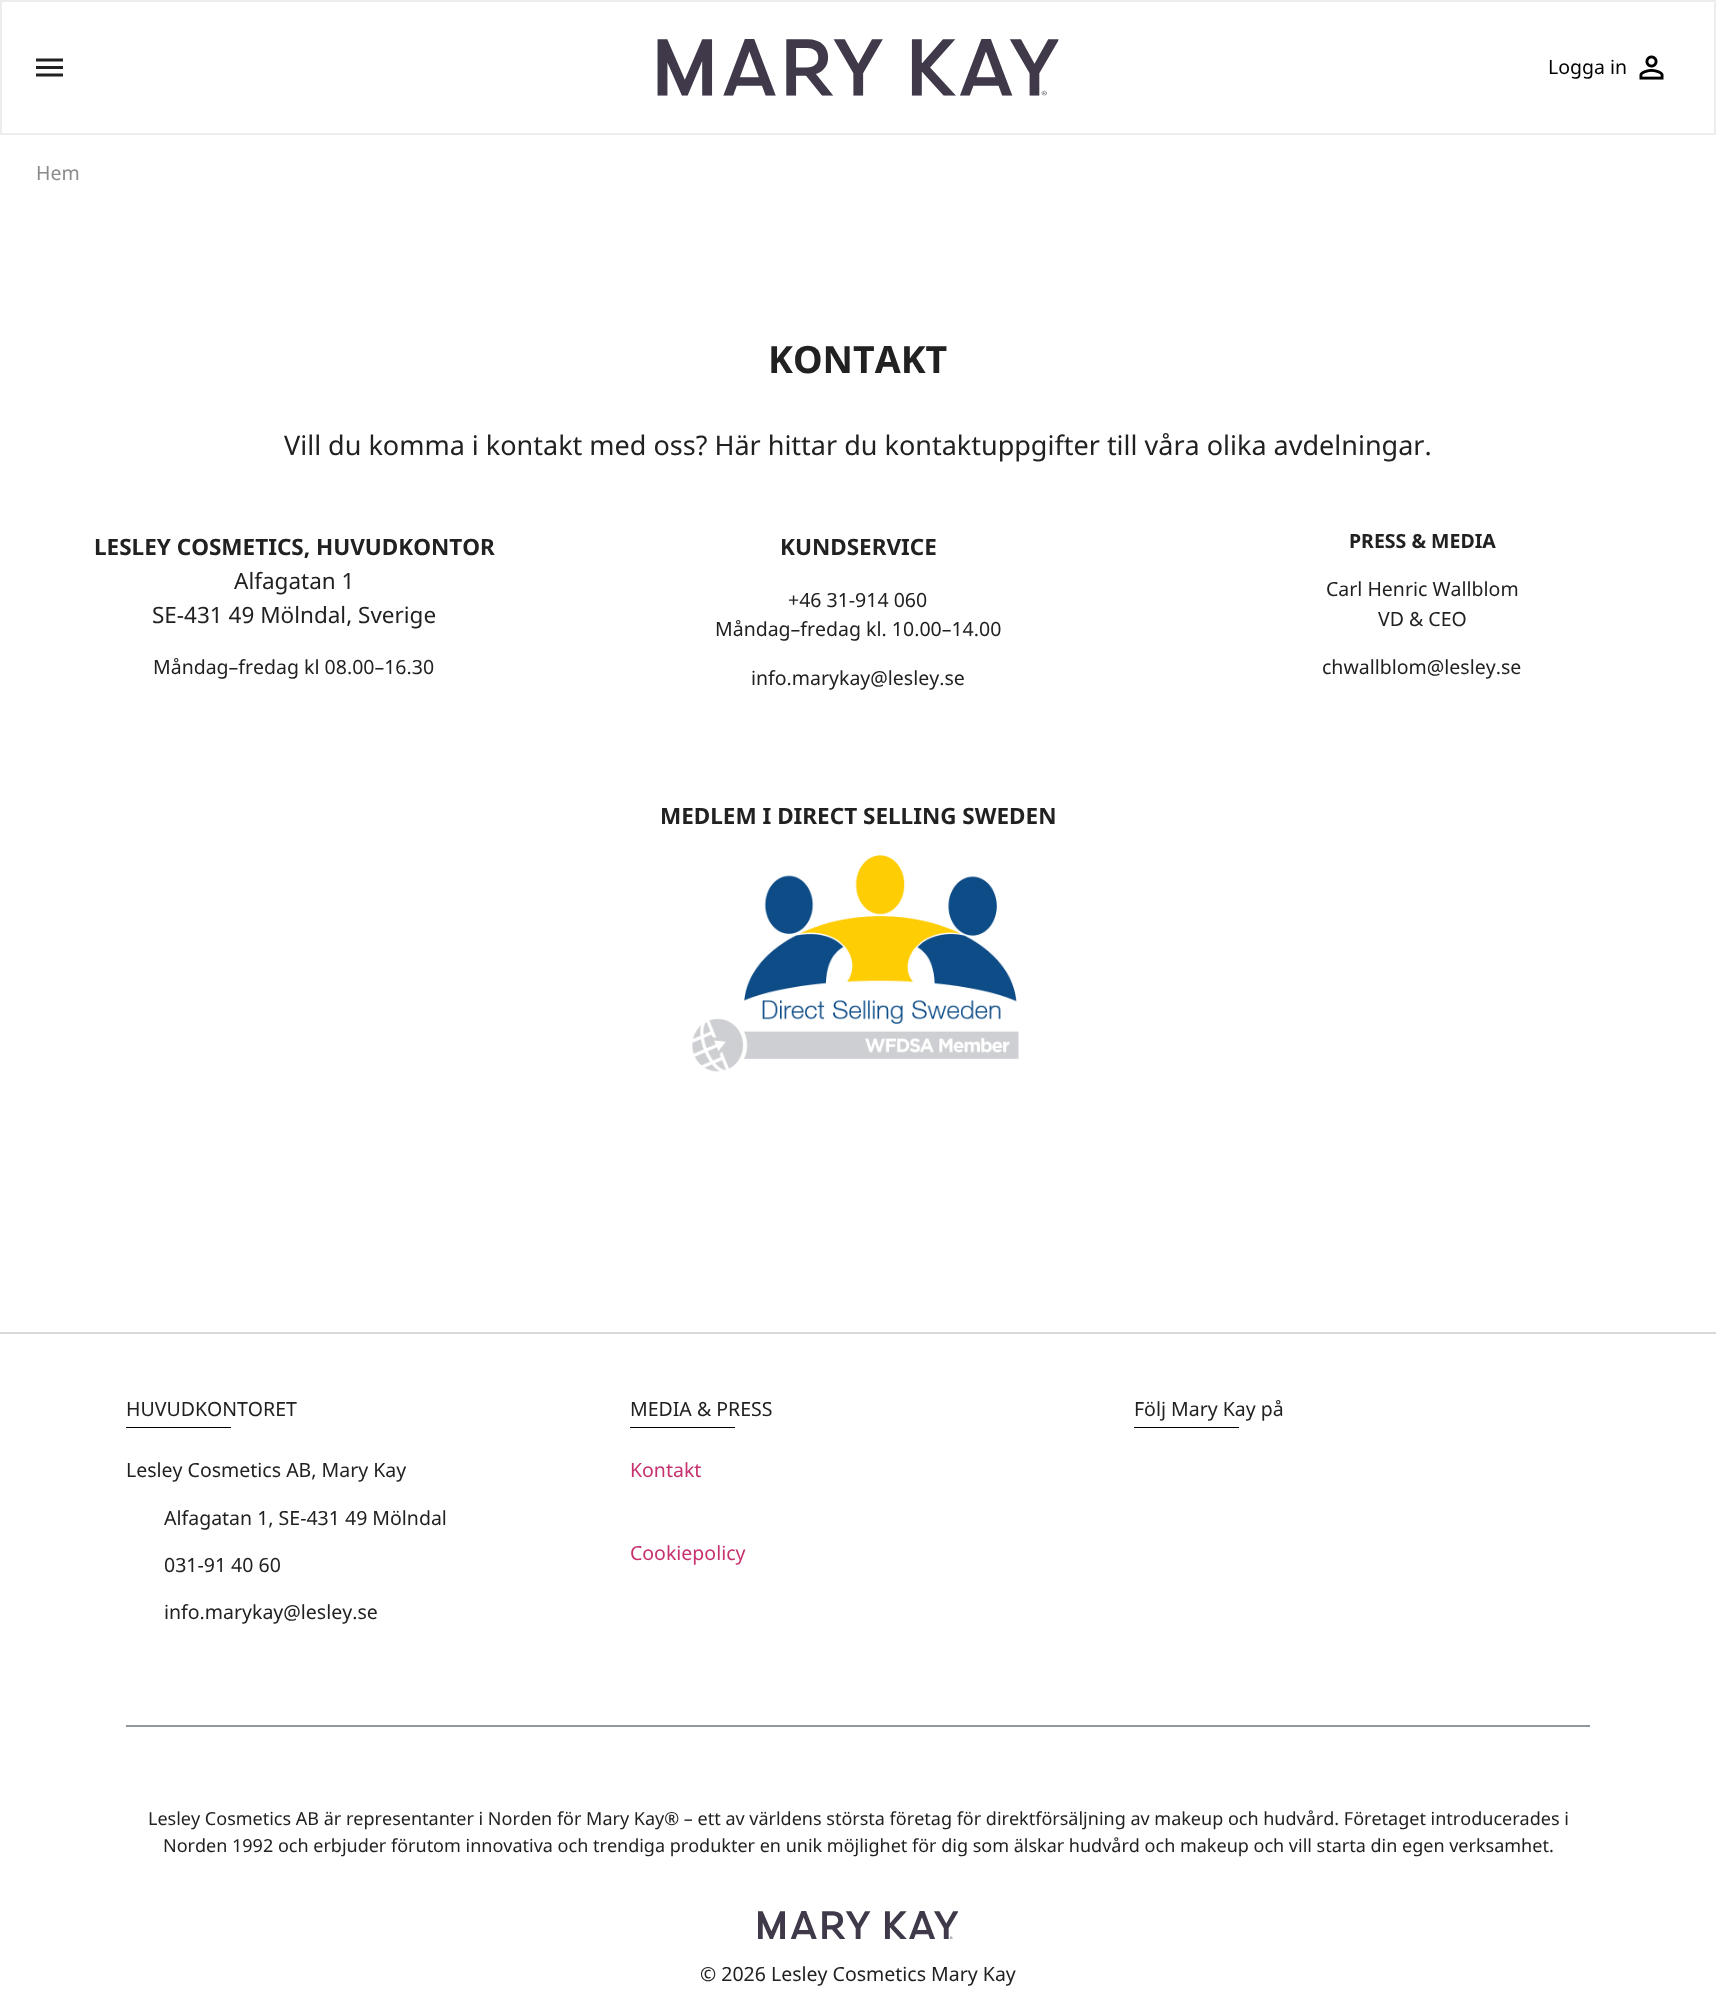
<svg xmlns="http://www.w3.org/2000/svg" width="1716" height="2001">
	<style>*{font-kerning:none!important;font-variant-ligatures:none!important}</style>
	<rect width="100%" height="100%" fill="#FFFFFF" />
	<rect x="1" y="1" width="1714" height="133" fill="none" stroke="#EDEDED" stroke-width="2" />
	<image x="36" y="58" width="27" height="19" href="assets/img1.png" />
	<image x="657" y="39" width="402" height="57" href="assets/img2.png" />
	<text x="1548" y="74" font-family="Noto Sans" font-size="19.5" fill="#000000">Logga in</text>
	<image x="1639" y="55" width="25" height="25" href="assets/img3.png" />
	<text x="36" y="180" font-family="Noto Sans" font-size="19.5" fill="#8A8C8C">Hem</text>
	<text x="768" y="373" font-family="Noto Sans" font-size="37.5" font-weight="700" fill="#212121">KONTAKT</text>
	<text x="284" y="455" font-family="'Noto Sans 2'" font-size="27" fill="#212121">Vill du komma i kontakt med oss? Här hittar du kontaktuppgifter till våra olika avdelningar.</text>
	<text x="94" y="555" font-family="Noto Sans" font-size="22.5" font-weight="700" fill="#212121">LESLEY COSMETICS, HUVUDKONTOR</text>
	<g font-family="'Noto Sans 2'" font-size="22.5" fill="#212121">
		<text x="234" y="589">Alfagatan 1</text>
		<text x="152" y="623">SE-431 49 Mölndal, Sverige</text>
	</g>
	<text x="153" y="674" font-family="'Noto Sans 2'" font-size="19.5" fill="#212121">Måndag–fredag kl 08.00–16.30</text>
	<text x="780" y="555" font-family="Noto Sans" font-size="22.5" font-weight="700" fill="#212121">KUNDSERVICE</text>
	<g font-family="'Noto Sans 2'" font-size="19.5" fill="#212121">
		<text x="788" y="607">+46 31-914 060</text>
		<text x="715" y="636">Måndag–fredag kl. 10.00–14.00</text>
		<text x="751" y="685">info.marykay@lesley.se</text>
	</g>
	<text x="1349" y="548" font-family="Noto Sans" font-size="19.5" font-weight="700" fill="#212121">PRESS &amp; MEDIA</text>
	<g font-family="'Noto Sans 2'" font-size="19.5" fill="#212121">
		<text x="1326" y="596">Carl Henric Wallblom</text>
		<text x="1378" y="626">VD &amp; CEO</text>
		<text x="1322" y="674">chwallblom@lesley.se</text>
	</g>
	<text x="660" y="824" font-family="Noto Sans" font-size="22.5" font-weight="700" fill="#212121">MEDLEM I DIRECT SELLING SWEDEN</text>
	<image x="692" y="855" width="327" height="217" href="assets/img4.png" />
	<rect x="0" y="1332" width="1716" height="2" fill="#DBD9D6" />
	<rect x="126" y="1427" width="105" height="1" fill="#000000" />
	<g font-family="Noto Sans" font-size="19.5" fill="#212121">
		<text x="126" y="1416">HUVUDKONTORET</text>
		<text x="126" y="1477">Lesley Cosmetics AB, Mary Kay</text>
		<text x="164" y="1525">Alfagatan 1, SE-431 49 Mölndal</text>
		<text x="164" y="1572">031-91 40 60</text>
		<text x="164" y="1619">info.marykay@lesley.se</text>
	</g>
	<rect x="630" y="1427" width="105" height="1" fill="#000000" />
	<text x="630" y="1416" font-family="Noto Sans" font-size="19.5" fill="#212121">MEDIA &amp; PRESS</text>
	<g font-family="Noto Sans" font-size="19.5" fill="#C6316E">
		<text x="630" y="1477">Kontakt</text>
		<text x="630" y="1560">Cookiepolicy</text>
	</g>
	<rect x="1134" y="1427" width="105" height="1" fill="#000000" />
	<text x="1134" y="1416" font-family="Noto Sans" font-size="19.5" fill="#212121">Följ Mary Kay på</text>
	<rect x="126" y="1725" width="1464" height="2" fill="#8F98A1" />
	<g font-family="Noto Sans" font-size="18" fill="#212121">
		<text x="148" y="1825">Lesley Cosmetics AB är representanter i Norden för Mary Kay® – ett av världens största företag för direktförsäljning av makeup och hudvård. Företaget introducerades i</text>
		<text x="163" y="1852">Norden 1992 och erbjuder förutom innovativa och trendiga produkter en unik möjlighet för dig som älskar hudvård och makeup och vill starta din egen verksamhet.</text>
	</g>
	<image x="758" y="1911" width="200" height="28" href="assets/img5.png" />
	<text x="700" y="1981" font-family="Noto Sans" font-size="19.5" fill="#212121">© 2026 Lesley Cosmetics Mary Kay</text>
</svg>
